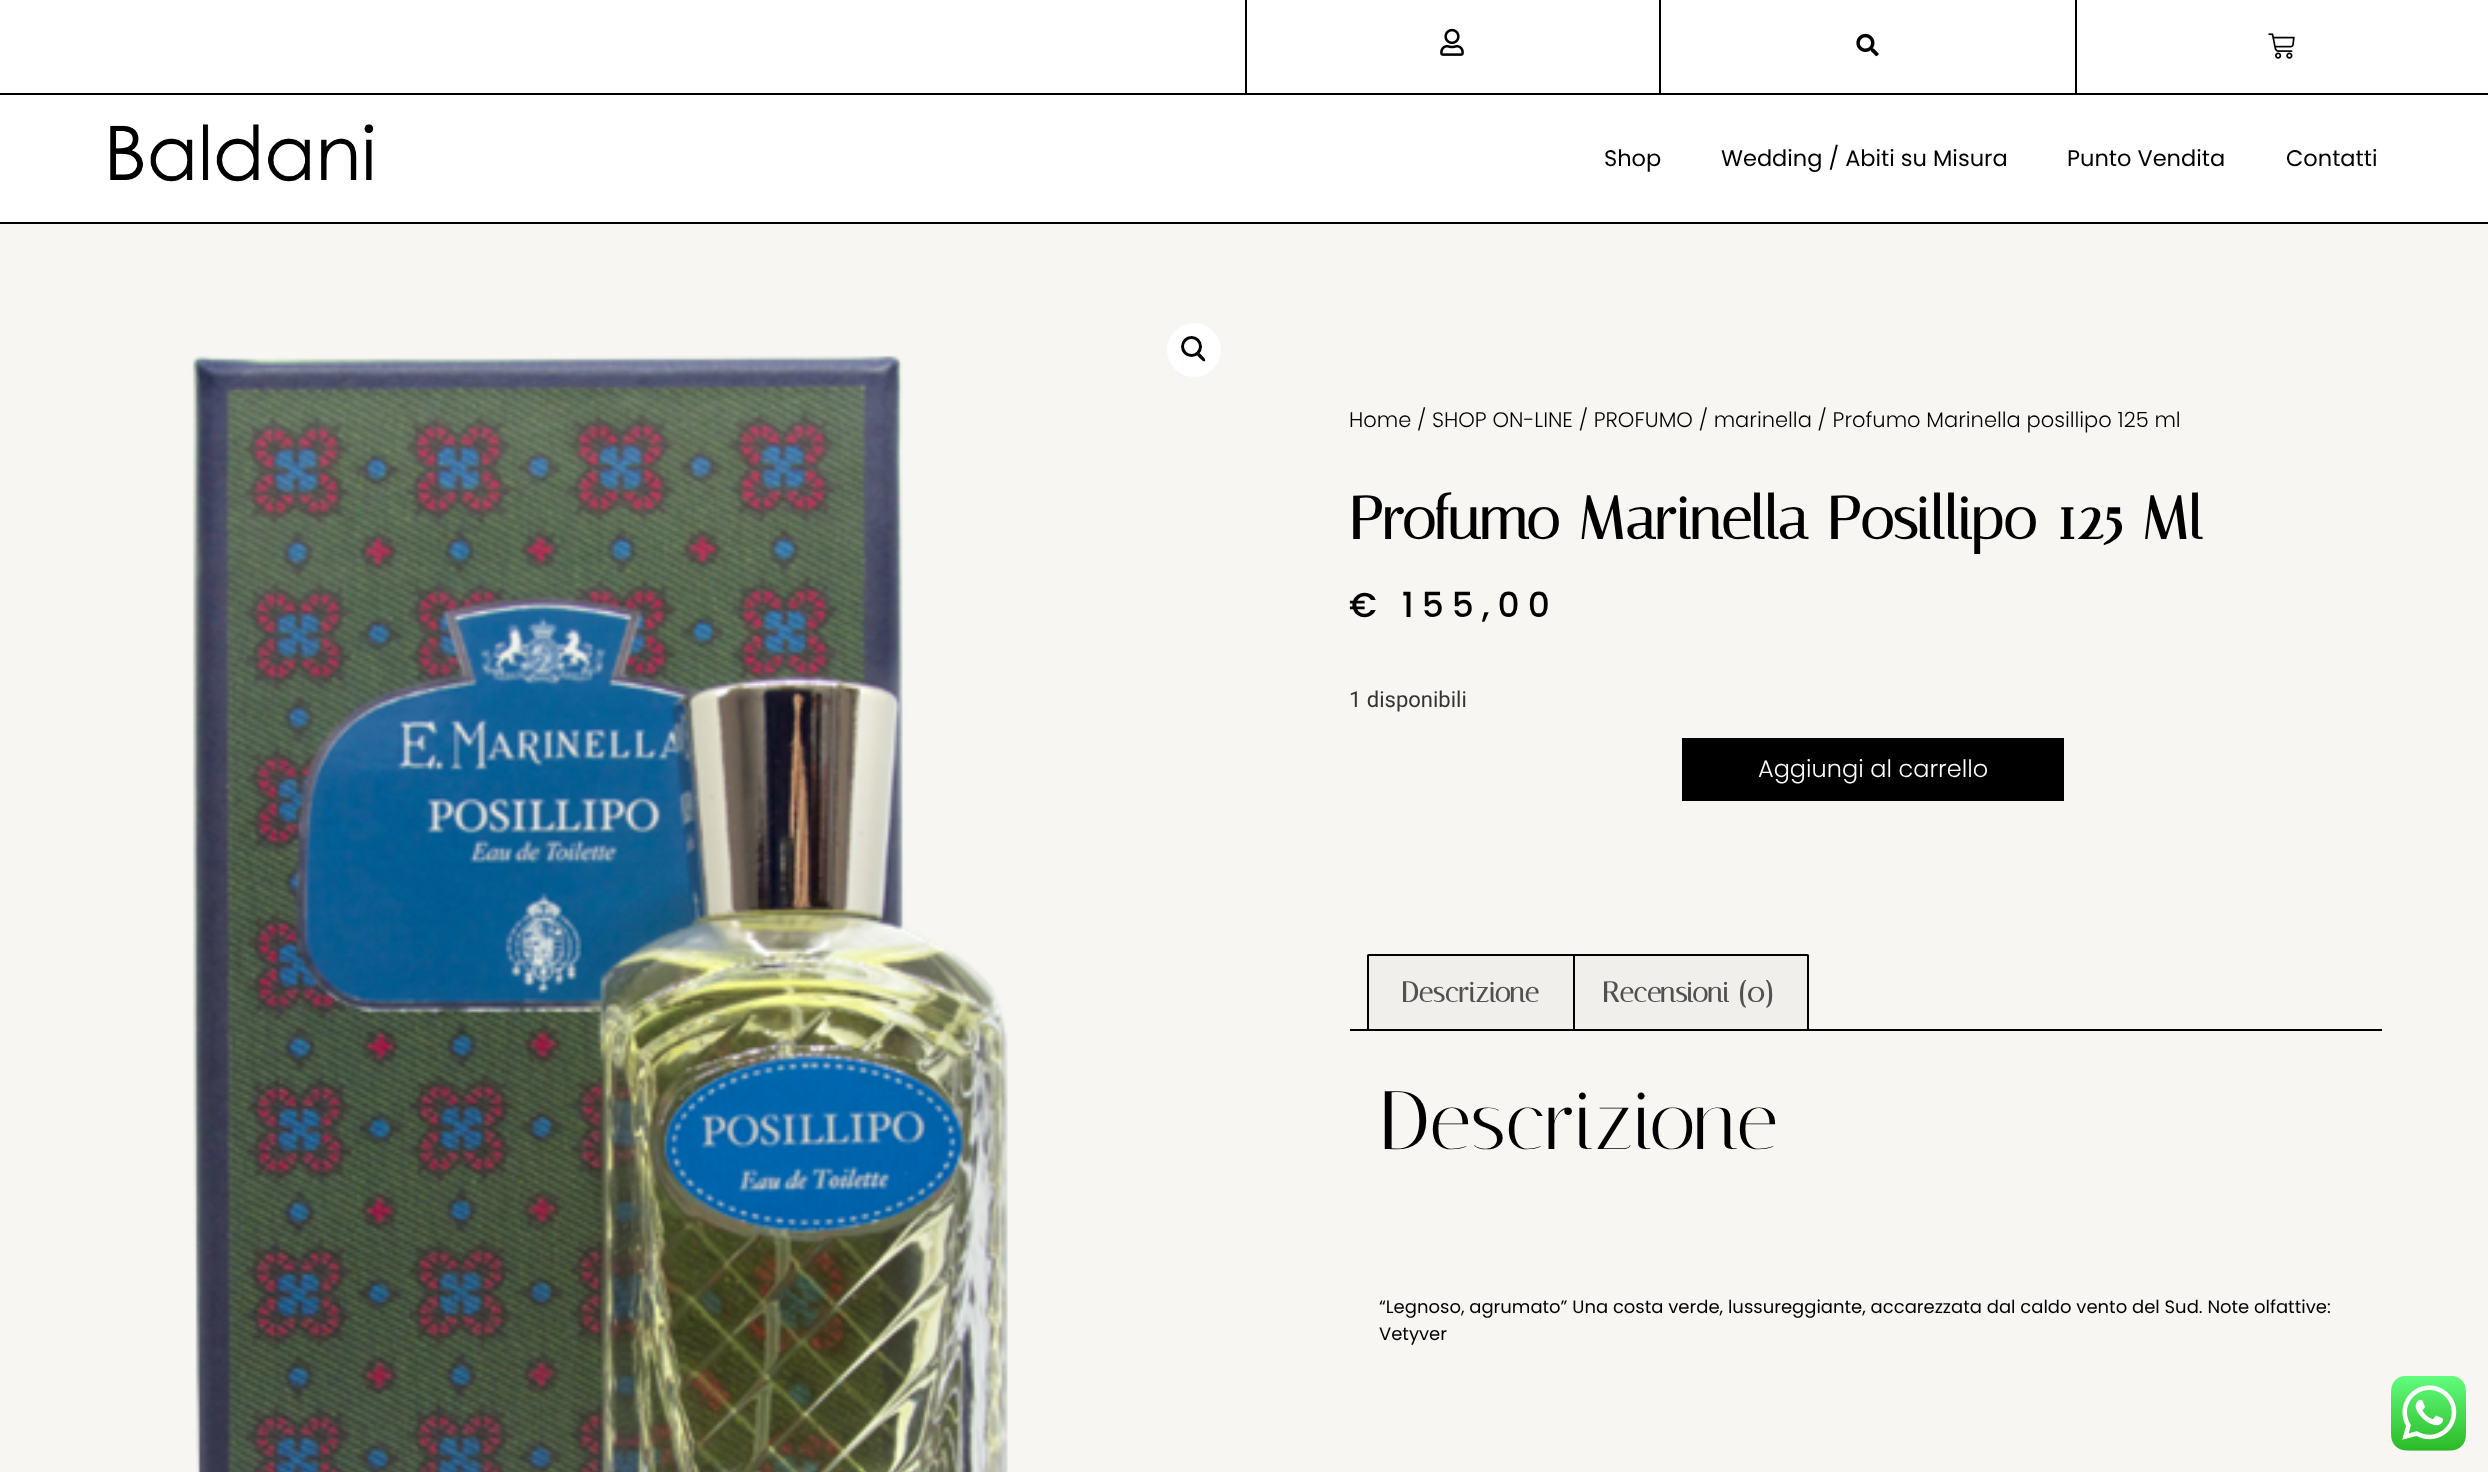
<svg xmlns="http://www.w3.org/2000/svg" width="2488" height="1472">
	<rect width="100%" height="100%" fill="#F8F6F3" />
	<rect x="0" y="0" width="2488" height="93" fill="#FFFFFF" />
	<rect x="0" y="93" width="2488" height="2" fill="#000000" />
	<rect x="1245" y="0" width="2" height="93" fill="#000000" />
	<image x="1440" y="28" width="24" height="28" href="assets/img1.png" />
	<rect x="2075" y="0" width="2" height="93" fill="#000000" />
	<rect x="1659" y="0" width="2" height="93" fill="#000000" />
	<image x="1856" y="33" width="23" height="24" href="assets/img2.png" />
	<image x="2268" y="33" width="27" height="26" href="assets/img3.png" />
	<rect x="0" y="95" width="2488" height="127" fill="#FFFFFF" />
	<rect x="0" y="222" width="2488" height="2" fill="#000000" />
	<image x="110" y="124" width="264" height="58" href="assets/img4.png" />
	<g font-family="Poppins" font-size="22.5" fill="#000000">
		<text x="1604" y="166">Shop</text>
		<text x="1721" y="166">Wedding / Abiti su Misura</text>
		<text x="2067" y="166">Punto Vendita</text>
		<text x="2286" y="166">Contatti</text>
	</g>
	<image x="191" y="355" width="817" height="1117" href="assets/img5.png" />
	<circle cx="1194" cy="350" r="27" fill="#FFFFFF" />
	<circle cx="1191.5" cy="346.5" r="9" fill="none" stroke="#000000" stroke-width="3" />
	<path d="M1196.5 352.5C1198 350.5 1201 354.5 1202 355.5C1202.5 356.5 1206.5 359 1205 361C1203.5 362.5 1200.5 358.5 1199.5 358C1199 357 1195 354 1196.5 352.5Z" fill="#000000" />
	<text x="1349" y="427" font-family="Poppins" font-size="21" font-weight="300" fill="#000000">Home / SHOP ON-LINE / PROFUMO / marinella / Profumo Marinella posillipo 125 ml</text>
	<text x="1349" y="539" font-family="Italiana" font-size="60" font-weight="700" fill="#000000">Profumo Marinella Posillipo 125 Ml</text>
	<text x="1349" y="617" font-family="Poppins" font-size="34.5" font-weight="500" letter-spacing="8" fill="#000000">€ 155,00</text>
	<text x="1349" y="707" font-family="Roboto" font-size="22" fill="#333333">1 disponibili</text>
	<rect x="1682" y="738" width="382" height="63" fill="#000000" />
	<text x="1758" y="777" font-family="Poppins" font-size="24" font-weight="300" fill="#FFFFFF">Aggiungi al carrello</text>
	<rect x="1350" y="1029" width="1032" height="2" fill="#000000" />
	<path d="M1567.5 955H1807.5C1808 955 1808 955 1808 955.5V1030H1567V955.5C1567 955 1567 955 1567.5 955Z" fill="#F1EFEB" stroke="#000000" stroke-width="2" />
	<path d="M1368.5 955H1573.5C1574 955 1574 955 1574 955.5V1030H1368V955.5C1368 955 1368 955 1368.5 955Z" fill="#F1EFEB" stroke="#000000" stroke-width="2" />
	<g font-family="Italiana" font-size="28.5" font-weight="700" fill="#515151">
		<text x="1401" y="1002">Descrizione</text>
		<text x="1602" y="1002">Recensioni (0)</text>
	</g>
	<text x="1379" y="1149" font-family="Italiana" font-size="82.5" fill="#000000">Descrizione</text>
	<g font-family="Poppins" font-size="18" fill="#000000">
		<text x="1379" y="1313">“Legnoso, agrumato” Una costa verde, lussureggiante, accarezzata dal caldo vento del Sud. Note olfattive:</text>
		<text x="1379" y="1340">Vetyver</text>
	</g>
	<image x="2391" y="1376" width="75" height="75" href="assets/img6.png" />
</svg>
